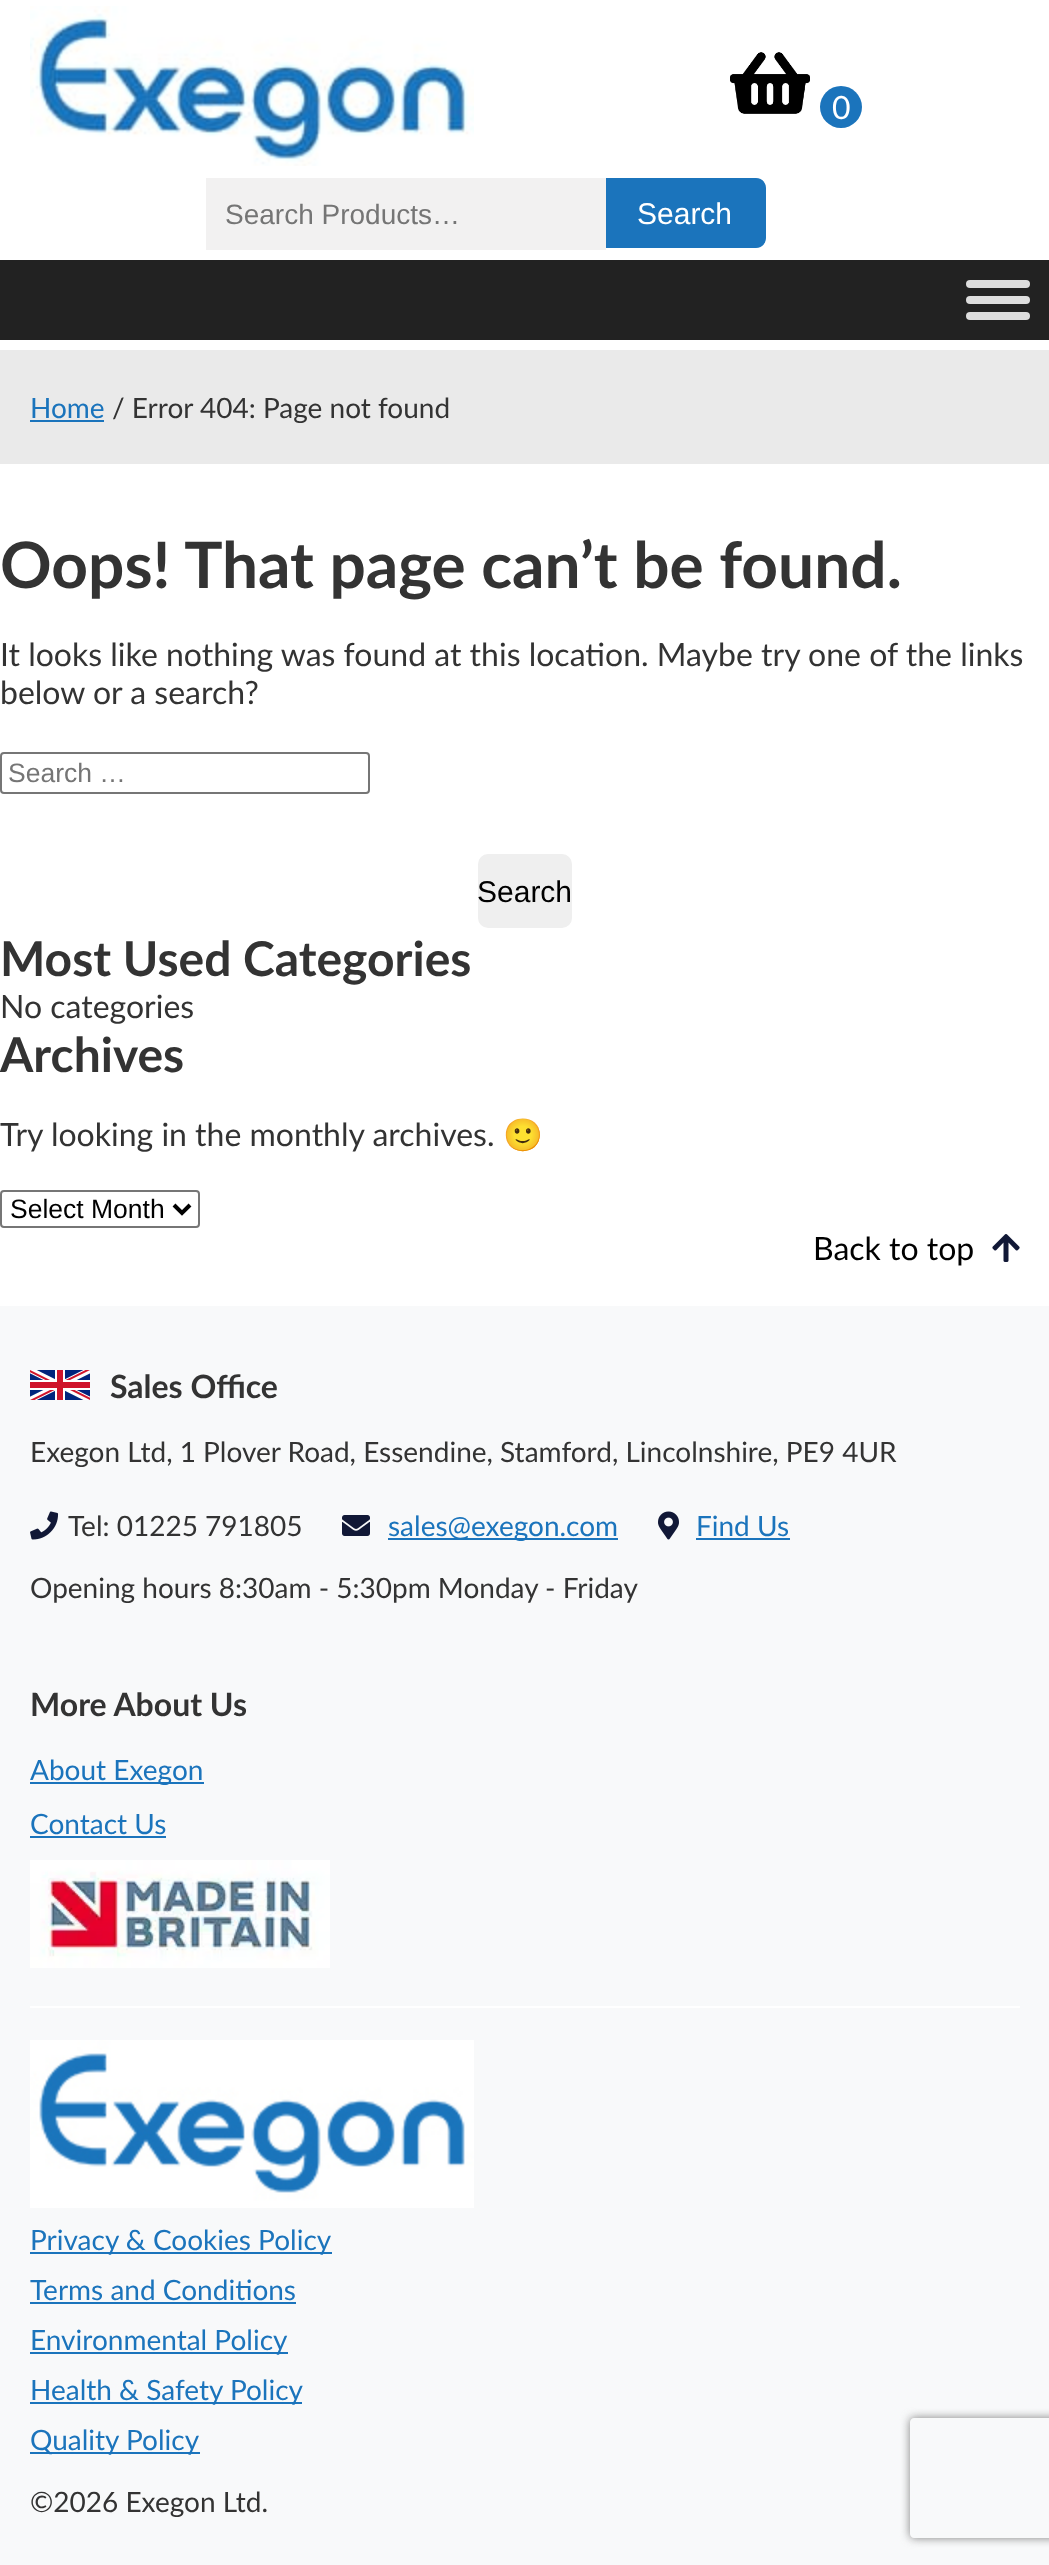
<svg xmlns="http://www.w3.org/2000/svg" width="1049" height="2565">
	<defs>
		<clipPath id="clip1"><path d="M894 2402H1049V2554H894ZM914 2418H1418C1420 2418 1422 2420 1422 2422V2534C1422 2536 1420 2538 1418 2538H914C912 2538 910 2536 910 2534V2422C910 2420 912 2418 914 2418Z" clip-rule="evenodd" /></clipPath>
	</defs>
	<rect width="100%" height="100%" fill="#FFFFFF" />
	<image x="30" y="6" width="444" height="160" href="assets/img1.png" />
	<image x="730" y="52" width="80" height="62" href="assets/img2.png" />
	<circle cx="841" cy="107" r="21" fill="#1B74BC" />
	<text x="832" y="119" font-family="Lato" font-size="32" fill="#FFFFFF">0</text>
	<rect x="206" y="178" width="400" height="72" fill="#F2F1F1" />
	<text x="225" y="224" font-family="Liberation Sans" font-size="28" fill="#757575">Search Products…</text>
	<path d="M606 178H756C761.5 178 766 182.5 766 188V238C766 243.5 761.5 248 756 248H606Z" fill="#1B74BC" />
	<text x="637" y="224" font-family="Liberation Sans" font-size="30" fill="#FFFFFF">Search</text>
	<rect x="0" y="260" width="1049" height="80" fill="#222222" />
	<rect x="966" y="280" width="64" height="8" rx="4" fill="#DDDDDD" />
	<rect x="966" y="296" width="64" height="8" rx="4" fill="#DDDDDD" />
	<rect x="966" y="312" width="64" height="8" rx="4" fill="#DDDDDD" />
	<rect x="0" y="350" width="1049" height="114" fill="#EAEAEA" />
	<text x="30" y="418" font-family="Lato" font-size="28" fill="#1B74BC">Home</text>
	<rect x="30" y="420" width="74" height="2" fill="#1B74BC" />
	<text x="112" y="418" font-family="Lato" font-size="28" fill="#333333">/ Error 404: Page not found</text>
	<text x="0" y="588" font-family="Lato" font-size="64" font-weight="700" fill="#333333">Oops! That page can’t be found.</text>
	<g font-family="Lato" font-size="32" fill="#333333">
		<text x="0" y="666">It looks like nothing was found at this location. Maybe try one of the links</text>
		<text x="0" y="704">below or a search?</text>
	</g>
	<rect x="1" y="753" width="368" height="40" rx="3" fill="none" stroke="#767676" stroke-width="2" />
	<text x="8" y="782" font-family="Liberation Sans" font-size="26.5" fill="#757575">Search …</text>
	<rect x="478" y="854" width="94" height="74" rx="10" fill="#EFEFEF" />
	<text x="477" y="902" font-family="Liberation Sans" font-size="30" fill="#000000">Search</text>
	<text x="0" y="976" font-family="Lato" font-size="48" font-weight="700" fill="#333333">Most Used Categories</text>
	<text x="0" y="1018" font-family="Lato" font-size="32" fill="#333333">No categories</text>
	<text x="0" y="1072" font-family="Lato" font-size="48" font-weight="700" fill="#333333">Archives</text>
	<text x="0" y="1146" font-family="Lato" font-size="32" fill="#333333">Try looking in the monthly archives.</text>
	<text x="503" y="1146" font-family="Noto Color Emoji" font-size="32" fill="#333333">🙂</text>
	<rect x="1" y="1191" width="198" height="36" rx="3" fill="none" stroke="#767676" stroke-width="2" />
	<path d="M174 1205L182 1213L190 1205" fill="none" stroke="#000000" stroke-width="4" />
	<text x="10" y="1218" font-family="Liberation Sans" font-size="26.5" fill="#000000">Select Month</text>
	<text x="813" y="1260" font-family="Lato" font-size="32" fill="#000000">Back to top</text>
	<image x="992" y="1234" width="28" height="28" href="assets/img3.png" />
	<rect x="0" y="1306" width="1049" height="1259" fill="#F8F9FA" />
	<image x="30" y="1370" width="60" height="30" href="assets/img4.png" />
	<text x="110" y="1398" font-family="Lato" font-size="32" font-weight="700" fill="#333333">Sales Office</text>
	<text x="30" y="1462" font-family="Lato" font-size="28" fill="#333333">Exegon Ltd, 1 Plover Road, Essendine, Stamford, Lincolnshire, PE9 4UR</text>
	<image x="30" y="1511" width="29" height="29" href="assets/img5.png" />
	<text x="68" y="1536" font-family="Lato" font-size="28" fill="#333333">Tel: 01225 791805</text>
	<image x="342" y="1515" width="28" height="21" href="assets/img6.png" />
	<rect x="388" y="1538" width="230" height="2" fill="#1B74BC" />
	<text x="388" y="1536" font-family="Lato" font-size="28" fill="#1B74BC">sales@exegon.com</text>
	<image x="658" y="1511" width="21" height="29" href="assets/img7.png" />
	<text x="696" y="1536" font-family="Lato" font-size="28" fill="#1B74BC">Find Us</text>
	<rect x="696" y="1538" width="94" height="2" fill="#1B74BC" />
	<text x="30" y="1598" font-family="Lato" font-size="28" fill="#333333">Opening hours 8:30am - 5:30pm Monday - Friday</text>
	<text x="30" y="1716" font-family="Lato" font-size="32" font-weight="700" fill="#333333">More About Us</text>
	<rect x="30" y="1782" width="174" height="2" fill="#1B74BC" />
	<g font-family="Lato" font-size="28" fill="#1B74BC">
		<text x="30" y="1780">About Exegon</text>
		<text x="30" y="1834">Contact Us</text>
	</g>
	<rect x="30" y="1836" width="136" height="2" fill="#1B74BC" />
	<image x="30" y="1860" width="300" height="108" href="assets/img8.png" />
	<rect x="30" y="2006" width="990" height="2" fill="#FFFFFF" />
	<image x="30" y="2040" width="444" height="168" href="assets/img9.png" />
	<rect x="30" y="2252" width="302" height="2" fill="#1B74BC" />
	<g font-family="Lato" font-size="28" fill="#1B74BC">
		<text x="30" y="2250">Privacy &amp; Cookies Policy</text>
		<text x="30" y="2300">Terms and Conditions</text>
	</g>
	<rect x="30" y="2302" width="266" height="2" fill="#1B74BC" />
	<rect x="30" y="2352" width="258" height="2" fill="#1B74BC" />
	<text x="30" y="2350" font-family="Lato" font-size="28" fill="#1B74BC">Environmental Policy</text>
	<rect x="30" y="2402" width="272" height="2" fill="#1B74BC" />
	<text x="30" y="2400" font-family="Lato" font-size="28" fill="#1B74BC">Health &amp; Safety Policy</text>
	<rect x="30" y="2452" width="170" height="2" fill="#1B74BC" />
	<text x="30" y="2450" font-family="Lato" font-size="28" fill="#1B74BC">Quality Policy</text>
	<text x="30" y="2512" font-family="Lato" font-size="28" fill="#333333">©2026 Exegon Ltd.</text>
	<g clip-path="url(#clip1)">
		<rect x="910" y="2418" width="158" height="120" rx="4" fill="#808080" filter="blur(5px)" />
	</g>
</svg>
